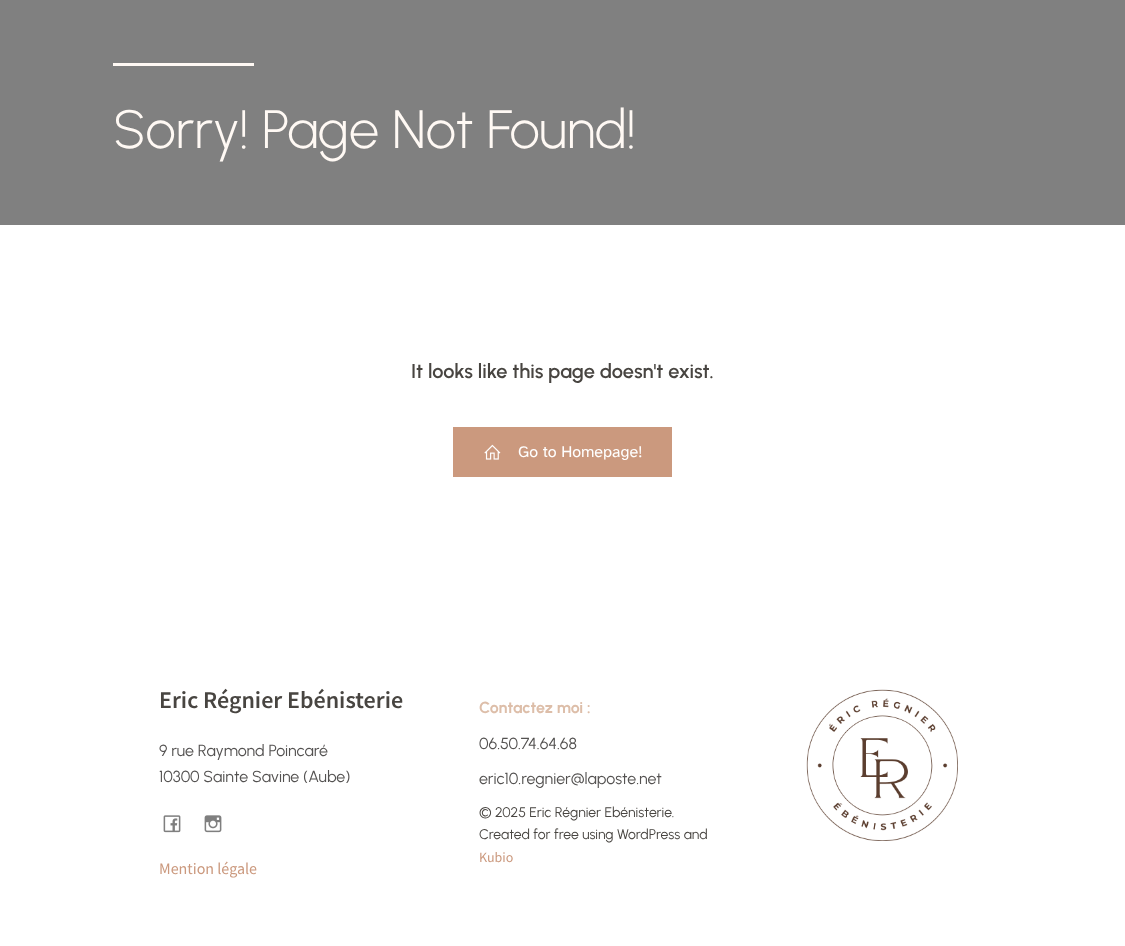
async function draw(canvas) {
  canvas.width = 1125
  canvas.height = 946
  const ctx = canvas.getContext('2d')
  ctx.miterLimit = 4
  ctx.fontKerning = 'normal'
  async function loadImage(src) {
    const img = new Image()
    img.src = src
    await img.decode()
    return img
  }

  ctx.fillStyle = '#fff'
  ctx.fillRect(0, 0, 1125, 946)
  ctx.fillStyle = '#808080'
  ctx.fillRect(0, 0, 1125, 225)
  ctx.fillStyle = '#fff9f4'
  ctx.fillRect(113, 63, 141, 3)
  ctx.font = '300 54px Urbanist'
  ctx.fillText('Sorry! Page Not Found!', 113, 148)
  ctx.font = '600 20px Urbanist'
  ctx.fillStyle = '#484541'
  ctx.fillText('It looks like this page doesn\'t exist.', 411, 378)
  ctx.fillStyle = '#cb997e'
  ctx.fillRect(453, 427, 219, 50)
  ctx.drawImage(await loadImage('image0.png'), 484, 444, 17, 16)
  ctx.font = '16px Atkinson Hyperlegible'
  ctx.fillStyle = '#fff'
  ctx.fillText('Go to Homepage!', 518, 457)
  ctx.font = '600 24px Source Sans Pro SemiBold'
  ctx.fillStyle = '#484541'
  ctx.fillText('Eric Régnier Ebénisterie', 159, 708)
  ctx.font = '16px Urbanist'
  ctx.fillStyle = '#545251'
  ctx.fillText('9 rue Raymond Poincaré', 159, 756)
  ctx.fillText('10300 Sainte Savine (Aube)', 159, 782)
  ctx.drawImage(await loadImage('image1.png'), 163, 815, 18, 18)
  ctx.drawImage(await loadImage('image2.png'), 204, 815, 18, 18)
  ctx.font = '16px Source Sans Pro'
  ctx.fillStyle = '#cb997e'
  ctx.fillText('Mention légale', 159, 874)
  ctx.font = 'bold 16px Urbanist'
  ctx.fillStyle = '#ddbea9'
  ctx.fillText('Contactez moi :', 479, 713)
  ctx.font = '16px Urbanist'
  ctx.fillStyle = '#545251'
  ctx.fillText('06.50.74.64.68', 479, 749)
  ctx.fillText('eric10.regnier@laposte.net', 479, 784)
  ctx.font = '14px Urbanist'
  ctx.fillStyle = '#484541'
  ctx.fillText('© 2025 Eric Régnier Ebénisterie.', 479, 817)
  ctx.fillText('Created for free using WordPress and', 479, 839)
  ctx.font = '14px Source Sans Pro'
  ctx.fillStyle = '#cb997e'
  ctx.fillText('Kubio', 479, 862)
  ctx.drawImage(await loadImage('image3.png'), 806, 689, 152, 152)
}

draw(document.querySelector('canvas'))
